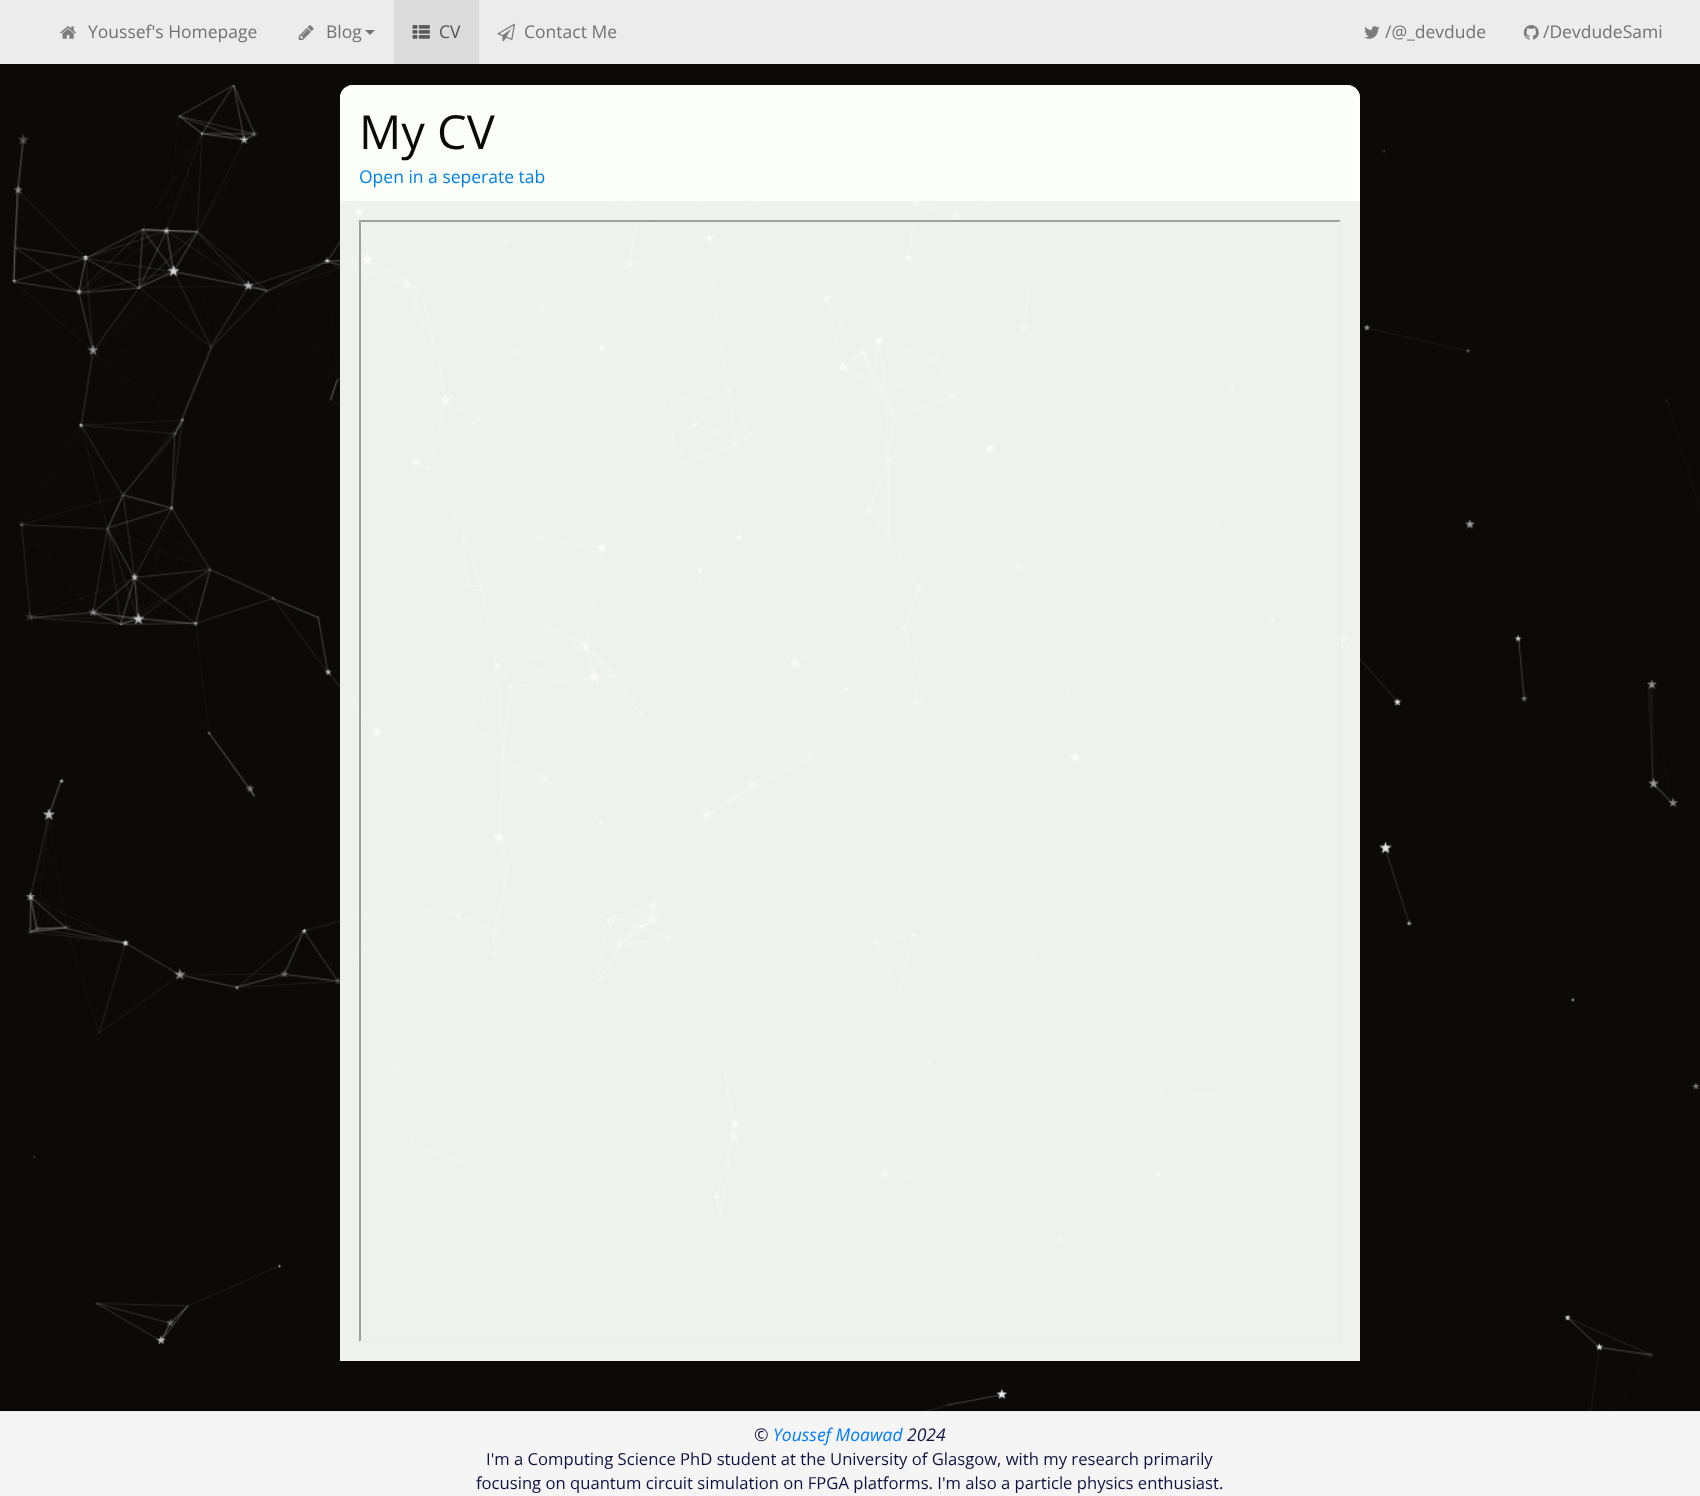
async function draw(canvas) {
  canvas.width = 1700
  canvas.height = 1496
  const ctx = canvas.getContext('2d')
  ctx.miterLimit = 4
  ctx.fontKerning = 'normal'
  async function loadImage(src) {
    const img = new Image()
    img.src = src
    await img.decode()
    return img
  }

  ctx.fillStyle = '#0b0a07'
  ctx.fillRect(0, 0, 1700, 1496)
  ctx.fillStyle = '#ececec'
  ctx.fillRect(0, 0, 1700, 64)
  ctx.drawImage(await loadImage('image0.png'), 60, 26, 16, 13)
  ctx.font = '17.5px Open Sans'
  ctx.fillStyle = '#727271'
  ctx.fillText('Youssef\'s Homepage', 88, 38)
  ctx.drawImage(await loadImage('image1.png'), 298, 25, 16, 15)
  ctx.fillText('Blog', 326, 38)
  ctx.beginPath()
  ctx.moveTo(365, 30)
  ctx.lineTo(375, 30)
  ctx.lineTo(370, 35)
  ctx.closePath()
  ctx.fill()
  ctx.fillStyle = '#dcdcdc'
  ctx.fillRect(394, 0, 85, 64)
  ctx.drawImage(await loadImage('image2.png'), 412, 25, 18, 14)
  ctx.fillStyle = '#515151'
  ctx.fillText('CV', 439, 38)
  ctx.drawImage(await loadImage('image3.png'), 497, 23, 18, 19)
  ctx.fillStyle = '#727271'
  ctx.fillText('Contact Me', 524, 38)
  ctx.drawImage(await loadImage('image4.png'), 1364, 26, 16, 13)
  ctx.fillText('/@_devdude', 1385, 38)
  ctx.drawImage(await loadImage('image5.png'), 1523, 25, 16, 15)
  ctx.fillText('/DevdudeSami', 1543, 38)
  ctx.drawImage(await loadImage('image6.png'), 11, 85, 1689, 1326)
  ctx.fillStyle = '#fbfef9f2'
  ctx.beginPath()
  ctx.roundRect(340, 85, 1020, 1276, [13, 13, 0, 0])
  ctx.fill()
  ctx.fillStyle = '#fbfef9'
  ctx.beginPath()
  ctx.roundRect(340, 85, 1020, 116, [13, 13, 0, 0])
  ctx.fill()
  ctx.font = '47px Open Sans'
  ctx.fillStyle = '#0b0a07'
  ctx.fillText('My CV', 359, 149)
  ctx.font = '17.5px Open Sans'
  ctx.fillStyle = '#0080e9'
  ctx.fillText('Open in a seperate tab', 359, 183)
  ctx.fillStyle = '#9f9f9f'
  ctx.beginPath()
  ctx.moveTo(359, 220)
  ctx.lineTo(1341, 220)
  ctx.lineTo(1339, 222)
  ctx.lineTo(361, 222)
  ctx.closePath()
  ctx.fill()
  ctx.fillStyle = '#eee'
  ctx.beginPath()
  ctx.moveTo(1341, 220)
  ctx.lineTo(1341, 1342)
  ctx.lineTo(1339, 1340)
  ctx.lineTo(1339, 222)
  ctx.closePath()
  ctx.fill()
  ctx.beginPath()
  ctx.moveTo(1341, 1342)
  ctx.lineTo(359, 1342)
  ctx.lineTo(361, 1340)
  ctx.lineTo(1339, 1340)
  ctx.closePath()
  ctx.fill()
  ctx.fillStyle = '#9f9f9f'
  ctx.beginPath()
  ctx.moveTo(359, 1342)
  ctx.lineTo(359, 220)
  ctx.lineTo(361, 222)
  ctx.lineTo(361, 1340)
  ctx.closePath()
  ctx.fill()
  ctx.fillStyle = '#f5f5f5'
  ctx.fillRect(0, 1412, 1700, 84)
  ctx.fillStyle = '#e9e9e9'
  ctx.fillRect(0, 1411, 1700, 1)
  ctx.font = 'italic 17.5px Open Sans'
  ctx.fillStyle = '#0e1241'
  ctx.fillText('©', 754, 1441)
  ctx.fillStyle = '#007bff'
  ctx.fillText('Youssef Moawad', 773, 1441)
  ctx.fillStyle = '#0e1241'
  ctx.fillText('2024', 907, 1441)
  ctx.font = '16.65px Open Sans'
  ctx.fillText('I\'m a Computing Science PhD student at the University of Glasgow, with my research primarily', 486, 1465)
  ctx.fillText('focusing on quantum circuit simulation on FPGA platforms. I\'m also a particle physics enthusiast.', 476, 1489)
}

draw(document.querySelector('canvas'))
